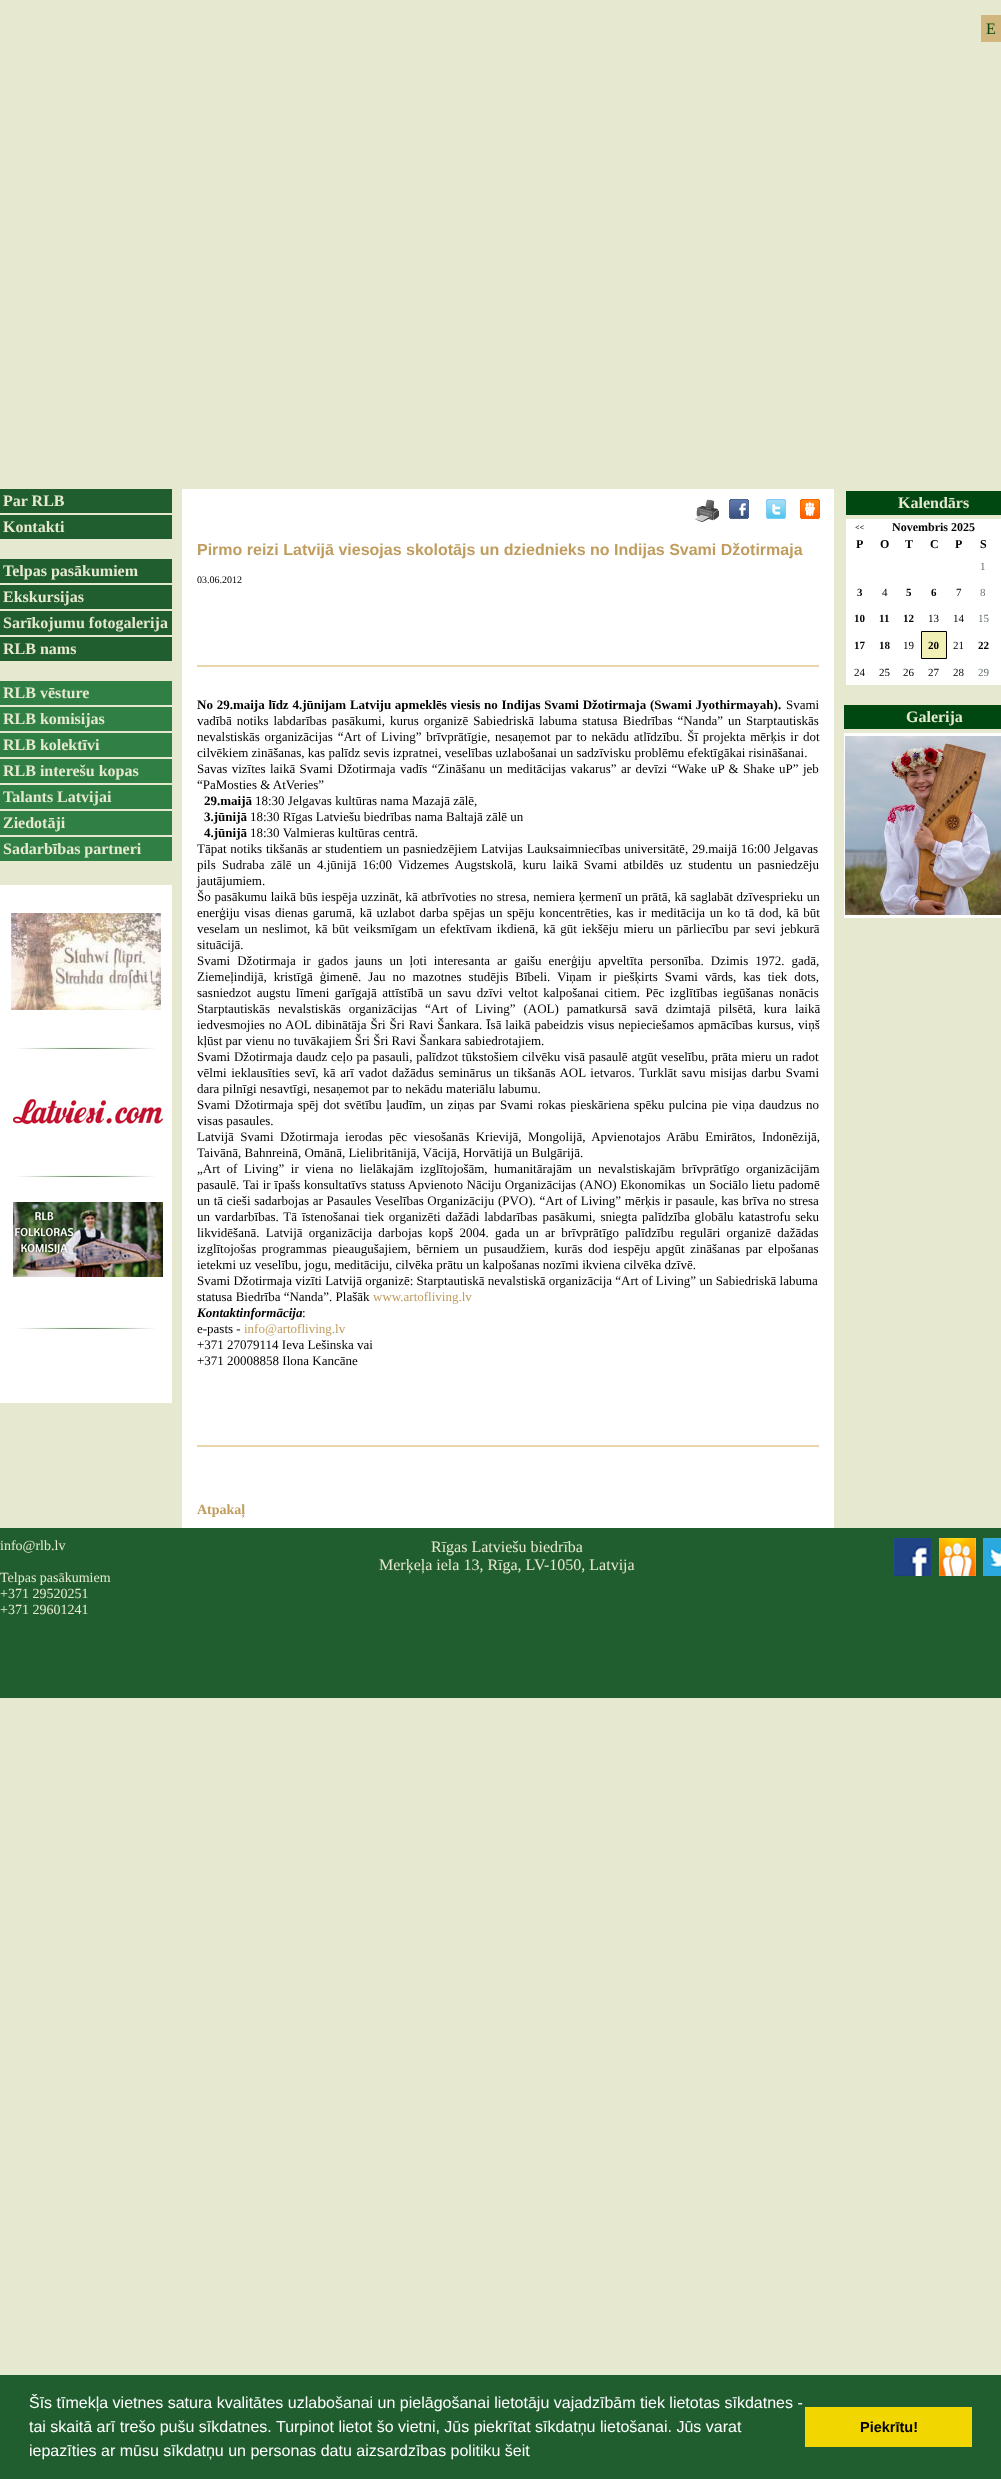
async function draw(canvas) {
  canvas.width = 1001
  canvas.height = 2479
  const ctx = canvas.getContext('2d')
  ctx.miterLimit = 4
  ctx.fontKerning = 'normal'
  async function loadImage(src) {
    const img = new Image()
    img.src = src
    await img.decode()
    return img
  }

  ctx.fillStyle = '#e6e8d0'
  ctx.fillRect(0, 0, 1001, 2479)
  ctx.fillStyle = '#d1b77d'
  ctx.fillRect(981, 15, 20, 27)
  ctx.font = '16px Liberation Serif'
  ctx.fillStyle = '#004812'
  ctx.fillText('E', 986, 34)
  ctx.fillStyle = '#205e2f'
  ctx.fillRect(0, 489, 172, 24)
  ctx.font = 'bold 16px Liberation Serif'
  ctx.fillStyle = '#e6e8d0'
  ctx.fillText('Par RLB', 3, 506)
  ctx.fillStyle = '#205e2f'
  ctx.fillRect(0, 515, 172, 24)
  ctx.fillStyle = '#e6e8d0'
  ctx.fillText('Kontakti', 3, 532)
  ctx.fillStyle = '#205e2f'
  ctx.fillRect(0, 559, 172, 24)
  ctx.fillStyle = '#e6e8d0'
  ctx.fillText('Telpas pasākumiem', 3, 576)
  ctx.fillStyle = '#205e2f'
  ctx.fillRect(0, 585, 172, 24)
  ctx.fillStyle = '#e6e8d0'
  ctx.fillText('Ekskursijas', 3, 602)
  ctx.fillStyle = '#205e2f'
  ctx.fillRect(0, 611, 172, 24)
  ctx.fillStyle = '#e6e8d0'
  ctx.fillText('Sarīkojumu fotogalerija', 3, 628)
  ctx.fillStyle = '#205e2f'
  ctx.fillRect(0, 637, 172, 24)
  ctx.fillStyle = '#e6e8d0'
  ctx.fillText('RLB nams', 3, 654)
  ctx.fillStyle = '#308045'
  ctx.fillRect(0, 681, 172, 24)
  ctx.fillStyle = '#e6e8d0'
  ctx.fillText('RLB vēsture', 3, 698)
  ctx.fillStyle = '#308045'
  ctx.fillRect(0, 707, 172, 24)
  ctx.fillStyle = '#e6e8d0'
  ctx.fillText('RLB komisijas', 3, 724)
  ctx.fillStyle = '#308045'
  ctx.fillRect(0, 733, 172, 24)
  ctx.fillStyle = '#e6e8d0'
  ctx.fillText('RLB kolektīvi', 3, 750)
  ctx.fillStyle = '#308045'
  ctx.fillRect(0, 759, 172, 24)
  ctx.fillStyle = '#e6e8d0'
  ctx.fillText('RLB interešu kopas', 3, 776)
  ctx.fillStyle = '#308045'
  ctx.fillRect(0, 785, 172, 24)
  ctx.fillStyle = '#e6e8d0'
  ctx.fillText('Talants Latvijai', 3, 802)
  ctx.fillStyle = '#308045'
  ctx.fillRect(0, 811, 172, 24)
  ctx.fillStyle = '#e6e8d0'
  ctx.fillText('Ziedotāji', 3, 828)
  ctx.fillStyle = '#308045'
  ctx.fillRect(0, 837, 172, 24)
  ctx.fillStyle = '#e6e8d0'
  ctx.fillText('Sadarbības partneri', 3, 854)
  ctx.fillStyle = '#fff'
  ctx.fillRect(0, 885, 172, 518)
  ctx.drawImage(await loadImage('image0.png'), 11, 913, 150, 97)
  ctx.drawImage(await loadImage('image1.png'), 17, 1046, 138, 5)
  ctx.drawImage(await loadImage('image2.png'), 13, 1099, 150, 26)
  ctx.drawImage(await loadImage('image1.png'), 17, 1174, 138, 5)
  ctx.drawImage(await loadImage('image3.png'), 13, 1202, 150, 75)
  ctx.drawImage(await loadImage('image1.png'), 17, 1326, 138, 5)
  ctx.fillRect(182, 489, 652, 1039)
  ctx.drawImage(await loadImage('image4.png'), 695, 499, 24, 23)
  ctx.drawImage(await loadImage('image5.png'), 729, 499, 20, 20)
  ctx.drawImage(await loadImage('image6.png'), 766, 499, 20, 20)
  ctx.drawImage(await loadImage('image7.png'), 800, 499, 20, 20)
  ctx.font = 'bold 16px Liberation Sans'
  ctx.fillStyle = '#c09d5f'
  ctx.fillText('Pirmo reizi Latvijā viesojas skolotājs un dziednieks no Indijas Svami Džotirmaja', 197, 555)
  ctx.font = '10px Liberation Serif'
  ctx.fillStyle = '#000'
  ctx.fillText('03.06.2012', 197, 583)
  ctx.fillStyle = '#e9d6ae'
  ctx.fillRect(197, 665, 622, 2)
  ctx.wordSpacing = '0.5px'
  ctx.font = 'bold 13px Liberation Serif'
  ctx.fillStyle = '#000'
  ctx.fillText('No 29.maija līdz 4.jūnijam Latviju apmeklēs viesis no Indijas Svami Džotirmaja (Swami Jyothirmayah).', 197, 709)
  ctx.wordSpacing = '0px'
  ctx.font = '13px Liberation Serif'
  ctx.fillText('Svami', 786, 709)
  ctx.wordSpacing = '1.75px'
  ctx.fillText('vadībā notiks labdarības pasākumi, kurus organizē Sabiedriskā labuma statusa Biedrības “Nanda” un Starptautiskās', 197, 725)
  ctx.wordSpacing = '1.5px'
  ctx.fillText('nevalstiskās organizācijas “Art of Living” brīvprātīgie, nesaņemot par to nekādu atlīdzību. Šī projekta mērķis ir dot', 197, 741)
  ctx.wordSpacing = '0px'
  ctx.fillText('cilvēkiem zināšanas, kas palīdz sevis izpratnei, veselības uzlabošanai un sadzīvisku problēmu efektīgākai risināšanai.', 197, 757)
  ctx.wordSpacing = '1.1px'
  ctx.fillText('Savas vizītes laikā Svami Džotirmaja vadīs “Zināšanu un meditācijas vakarus” ar devīzi “Wake uP & Shake uP” jeb', 197, 773)
  ctx.wordSpacing = '0px'
  ctx.fillText('“PaMosties & AtVeries”', 197, 789)
  ctx.font = 'bold 13px Liberation Serif'
  ctx.fillText('29.maijā', 204, 805)
  ctx.font = '13px Liberation Serif'
  ctx.fillText('18:30 Jelgavas kultūras nama Mazajā zālē,', 255, 805)
  ctx.font = 'bold 13px Liberation Serif'
  ctx.fillText('3.jūnijā', 204, 821)
  ctx.font = '13px Liberation Serif'
  ctx.fillText('18:30 Rīgas Latviešu biedrības nama Baltajā zālē un', 250, 821)
  ctx.font = 'bold 13px Liberation Serif'
  ctx.fillText('4.jūnijā', 204, 837)
  ctx.font = '13px Liberation Serif'
  ctx.fillText('18:30 Valmieras kultūras centrā.', 250, 837)
  ctx.wordSpacing = '0.5px'
  ctx.fillText('Tāpat notiks tikšanās ar studentiem un pasniedzējiem Latvijas Lauksaimniecības universitātē, 29.maijā 16:00 Jelgavas', 197, 853)
  ctx.wordSpacing = '2.9px'
  ctx.fillText('pils Sudraba zālē un 4.jūnijā 16:00 Vidzemes Augstskolā, kuru laikā Svami atbildēs uz studentu un pasniedzēju', 197, 869)
  ctx.wordSpacing = '0px'
  ctx.fillText('jautājumiem.', 197, 885)
  ctx.wordSpacing = '0.4px'
  ctx.fillText('Šo pasākumu laikā būs iespēja uzzināt, kā atbrīvoties no stresa, nemiera ķermenī un prātā, kā saglabāt dzīvesprieku un', 197, 901)
  ctx.wordSpacing = '1.4px'
  ctx.fillText('enerģiju visas dienas garumā, kā uzlabot darba spējas un spēju koncentrēties, kas ir meditācija un ko tā dod, kā būt', 197, 917)
  ctx.wordSpacing = '1.6px'
  ctx.fillText('veselam un neslimot, kā būt veiksmīgam un efektīvam ikdienā, kā gūt iekšēju mieru un pārliecību par sevi jebkurā', 197, 933)
  ctx.wordSpacing = '0px'
  ctx.fillText('situācijā.', 197, 949)
  ctx.wordSpacing = '3.75px'
  ctx.fillText('Svami Džotirmaja ir gados jauns un ļoti interesanta ar gaišu enerģiju apveltīta personība. Dzimis 1972. gadā,', 197, 965)
  ctx.fillText('Ziemeļindijā, kristīgā ģimenē. Jau no mazotnes studējis Bībeli. Viņam ir piešķirts Svami vārds, kas tiek dots,', 197, 981)
  ctx.wordSpacing = '2.25px'
  ctx.fillText('sasniedzot augstu līmeni garīgajā attīstībā un savu dzīvi veltot kalpošanai citiem. Pēc izglītības iegūšanas nonācis', 197, 997)
  ctx.wordSpacing = '4.75px'
  ctx.fillText('Starptautiskās nevalstiskās organizācijas “Art of Living” (AOL) pamatkursā savā dzimtajā pilsētā, kura laikā', 197, 1013)
  ctx.wordSpacing = '0.7px'
  ctx.fillText('iedvesmojies no AOL dibinātāja Šri Šri Ravi Šankara. Īsā laikā pabeidzis visus nepieciešamos apmācības kursus, viņš', 197, 1029)
  ctx.wordSpacing = '0px'
  ctx.fillText('kļūst par vienu no tuvākajiem Šri Šri Ravi Šankara sabiedrotajiem.', 197, 1045)
  ctx.wordSpacing = '0.5px'
  ctx.fillText('Svami Džotirmaja daudz ceļo pa pasauli, palīdzot tūkstošiem cilvēku visā pasaulē atgūt veselību, prāta mieru un radot', 197, 1061)
  ctx.wordSpacing = '1.4px'
  ctx.fillText('vēlmi ieklausīties sevī, kā arī vadot dažādus seminārus un tikšanās AOL ietvaros. Turklāt savu misijas darbu Svami', 197, 1077)
  ctx.wordSpacing = '0px'
  ctx.fillText('dara pilnīgi nesavtīgi, nesaņemot par to nekādu materiālu labumu.', 197, 1093)
  ctx.wordSpacing = '1.25px'
  ctx.fillText('Svami Džotirmaja spēj dot svētību ļaudīm, un ziņas par Svami rokas pieskāriena spēku pulcina pie viņa daudzus no', 197, 1109)
  ctx.wordSpacing = '0px'
  ctx.fillText('visas pasaules.', 197, 1125)
  ctx.wordSpacing = '3.25px'
  ctx.fillText('Latvijā Svami Džotirmaja ierodas pēc viesošanās Krievijā, Mongolijā, Apvienotajos Arābu Emirātos, Indonēzijā,', 197, 1141)
  ctx.wordSpacing = '0px'
  ctx.fillText('Taivānā, Bahnreinā, Omānā, Lielibritānijā, Vācijā, Horvātijā un Bulgārijā.', 197, 1157)
  ctx.wordSpacing = '3.25px'
  ctx.fillText('„Art of Living” ir viena no lielākajām izglītojošām, humanitārajām un nevalstiskajām brīvprātīgo organizācijām', 197, 1173)
  ctx.wordSpacing = '0.4px'
  ctx.fillText('pasaulē. Tai ir īpašs konsultatīvs statuss Apvienoto Nāciju Organizācijas (ANO) Ekonomikas  un Sociālo lietu padomē', 197, 1189)
  ctx.fillText('un tā cieši sadarbojas ar Pasaules Veselības Organizāciju (PVO). “Art of Living” mērķis ir pasaule, kas brīva no stresa', 197, 1205)
  ctx.wordSpacing = '1.6px'
  ctx.fillText('un vardarbības. Tā īstenošanai tiek organizēti dažādi labdarības pasākumi, sniegta palīdzība globālu katastrofu seku', 197, 1221)
  ctx.wordSpacing = '3px'
  ctx.fillText('likvidēšanā. Latvijā organizācija darbojas kopš 2004. gada un ar brīvprātīgo palīdzību regulāri organizē dažādas', 197, 1237)
  ctx.wordSpacing = '2.4px'
  ctx.fillText('izglītojošas programmas pieaugušajiem, bērniem un pusaudžiem, kurās dod iespēju apgūt zināšanas par elpošanas', 197, 1253)
  ctx.wordSpacing = '0px'
  ctx.fillText('ietekmi uz veselību, jogu, meditāciju, cilvēka prātu un kalpošanas nozīmi ikviena cilvēka dzīvē.', 197, 1269)
  ctx.fillText('Svami Džotirmaja vizīti Latvijā organizē: Starptautiskā nevalstiskā organizācija “Art of Living” un Sabiedriskā labuma', 197, 1285)
  ctx.fillText('statusa Biedrība “Nanda”. Plašāk', 197, 1301)
  ctx.fillStyle = '#c09d5f'
  ctx.fillText('www.artofliving.lv', 373, 1301)
  ctx.font = 'italic bold 13px Liberation Serif'
  ctx.fillStyle = '#000'
  ctx.fillText('Kontaktinformācija', 197, 1317)
  ctx.font = '13px Liberation Serif'
  ctx.fillText(':', 302, 1317)
  ctx.fillText('e-pasts -', 197, 1333)
  ctx.fillStyle = '#c09d5f'
  ctx.fillText('info@artofliving.lv', 244, 1333)
  ctx.fillStyle = '#000'
  ctx.fillText('+371 27079114 Ieva Lešinska vai', 197, 1349)
  ctx.fillText('+371 20008858 Ilona Kancāne', 197, 1365)
  ctx.fillStyle = '#e9d6ae'
  ctx.fillRect(197, 1445, 622, 2)
  ctx.font = 'bold 14px Liberation Serif'
  ctx.fillStyle = '#c09d5f'
  ctx.fillText('Atpakaļ', 197, 1514)
  ctx.fillStyle = '#004811'
  ctx.fillRect(846, 491, 155, 24)
  ctx.font = 'bold 16px Liberation Serif'
  ctx.fillStyle = '#e6e8d0'
  ctx.fillText('Kalendārs', 898, 508)
  ctx.fillStyle = '#fff'
  ctx.fillRect(846, 519, 155, 166)
  ctx.font = 'bold 8px Liberation Serif'
  ctx.fillStyle = '#000'
  ctx.fillText('<<', 855, 530)
  ctx.font = 'bold 12px Liberation Serif'
  ctx.fillText('Novembris 2025', 892, 531)
  ctx.fillText('P', 856, 548)
  ctx.fillText('O', 880, 548)
  ctx.fillText('T', 905, 548)
  ctx.fillText('C', 930, 548)
  ctx.fillText('P', 955, 548)
  ctx.fillText('S', 980, 548)
  ctx.font = '11px Liberation Serif'
  ctx.fillStyle = '#667171'
  ctx.fillText('1', 980, 570)
  ctx.font = 'bold 11px Liberation Serif'
  ctx.fillStyle = '#000'
  ctx.fillText('3', 857, 596)
  ctx.font = '11px Liberation Serif'
  ctx.fillText('4', 882, 596)
  ctx.font = 'bold 11px Liberation Serif'
  ctx.fillText('5', 906, 596)
  ctx.fillText('6', 931, 596)
  ctx.font = '11px Liberation Serif'
  ctx.fillText('7', 956, 596)
  ctx.fillStyle = '#667171'
  ctx.fillText('8', 980, 596)
  ctx.font = 'bold 11px Liberation Serif'
  ctx.fillStyle = '#000'
  ctx.fillText('10', 854, 622)
  ctx.fillText('11', 879, 622)
  ctx.fillText('12', 903, 622)
  ctx.font = '11px Liberation Serif'
  ctx.fillText('13', 928, 622)
  ctx.fillText('14', 953, 622)
  ctx.fillStyle = '#667171'
  ctx.fillText('15', 978, 622)
  ctx.font = 'bold 11px Liberation Serif'
  ctx.fillStyle = '#000'
  ctx.fillText('17', 854, 649)
  ctx.fillText('18', 879, 649)
  ctx.font = '11px Liberation Serif'
  ctx.fillText('19', 903, 649)
  ctx.fillStyle = '#f1f1b6'
  ctx.beginPath()
  ctx.rect(921.5, 631.5, 25, 27)
  ctx.fill()
  ctx.strokeStyle = '#000'
  ctx.stroke()
  ctx.font = 'bold 11px Liberation Serif'
  ctx.fillStyle = '#000'
  ctx.fillText('20', 928, 649)
  ctx.font = '11px Liberation Serif'
  ctx.fillText('21', 953, 649)
  ctx.font = 'bold 11px Liberation Serif'
  ctx.fillText('22', 978, 649)
  ctx.font = '11px Liberation Serif'
  ctx.fillText('24', 854, 676)
  ctx.fillText('25', 879, 676)
  ctx.fillText('26', 903, 676)
  ctx.fillText('27', 928, 676)
  ctx.fillText('28', 953, 676)
  ctx.fillStyle = '#667171'
  ctx.fillText('29', 978, 676)
  ctx.fillStyle = '#004811'
  ctx.fillRect(844, 705, 157, 24)
  ctx.font = 'bold 16px Liberation Serif'
  ctx.fillStyle = '#e6e8d0'
  ctx.fillText('Galerija', 906, 722)
  ctx.fillStyle = '#fff'
  ctx.fillRect(844, 733, 157, 185)
  ctx.drawImage(await loadImage('image8.png'), 845, 736, 156, 179)
  ctx.fillStyle = '#205e2f'
  ctx.fillRect(0, 1528, 1001, 170)
  ctx.font = '14px Liberation Serif'
  ctx.fillStyle = '#e6e8d0'
  ctx.fillText('info@rlb.lv', 0, 1550)
  ctx.fillText('Telpas pasākumiem', 0, 1582)
  ctx.fillText('+371 29520251', 0, 1598)
  ctx.fillText('+371 29601241', 0, 1614)
  ctx.font = '16px Liberation Serif'
  ctx.fillText('Rīgas Latviešu biedrība', 431, 1552)
  ctx.fillText('Merķeļa iela 13, Rīga, LV-1050, Latvija', 379, 1570)
  ctx.drawImage(await loadImage('image9.png'), 894, 1538, 37, 38)
  ctx.drawImage(await loadImage('image10.png'), 939, 1538, 37, 38)
  ctx.drawImage(await loadImage('image11.png'), 983, 1538, 18, 38)
  ctx.fillStyle = '#205e2f'
  ctx.fillRect(0, 2375, 1001, 104)
  ctx.font = '16px Liberation Sans'
  ctx.fillStyle = '#fff'
  ctx.fillText('Šīs tīmekļa vietnes satura kvalitātes uzlabošanai un pielāgošanai lietotāju vajadzībām tiek lietotas sīkdatnes -', 29, 2408)
  ctx.fillText('tai skaitā arī trešo pušu sīkdatnes. Turpinot lietot šo vietni, Jūs piekrītat sīkdatņu lietošanai. Jūs varat', 29, 2432)
  ctx.fillText('iepazīties ar mūsu sīkdatņu un personas datu aizsardzības politiku šeit', 29, 2456)
  ctx.fillStyle = '#f1d600'
  ctx.fillRect(805, 2407, 167, 40)
  ctx.font = 'bold 14.5px Liberation Sans'
  ctx.fillStyle = '#000'
  ctx.fillText('Piekrītu!', 860, 2432)
}

draw(document.querySelector('canvas'))
